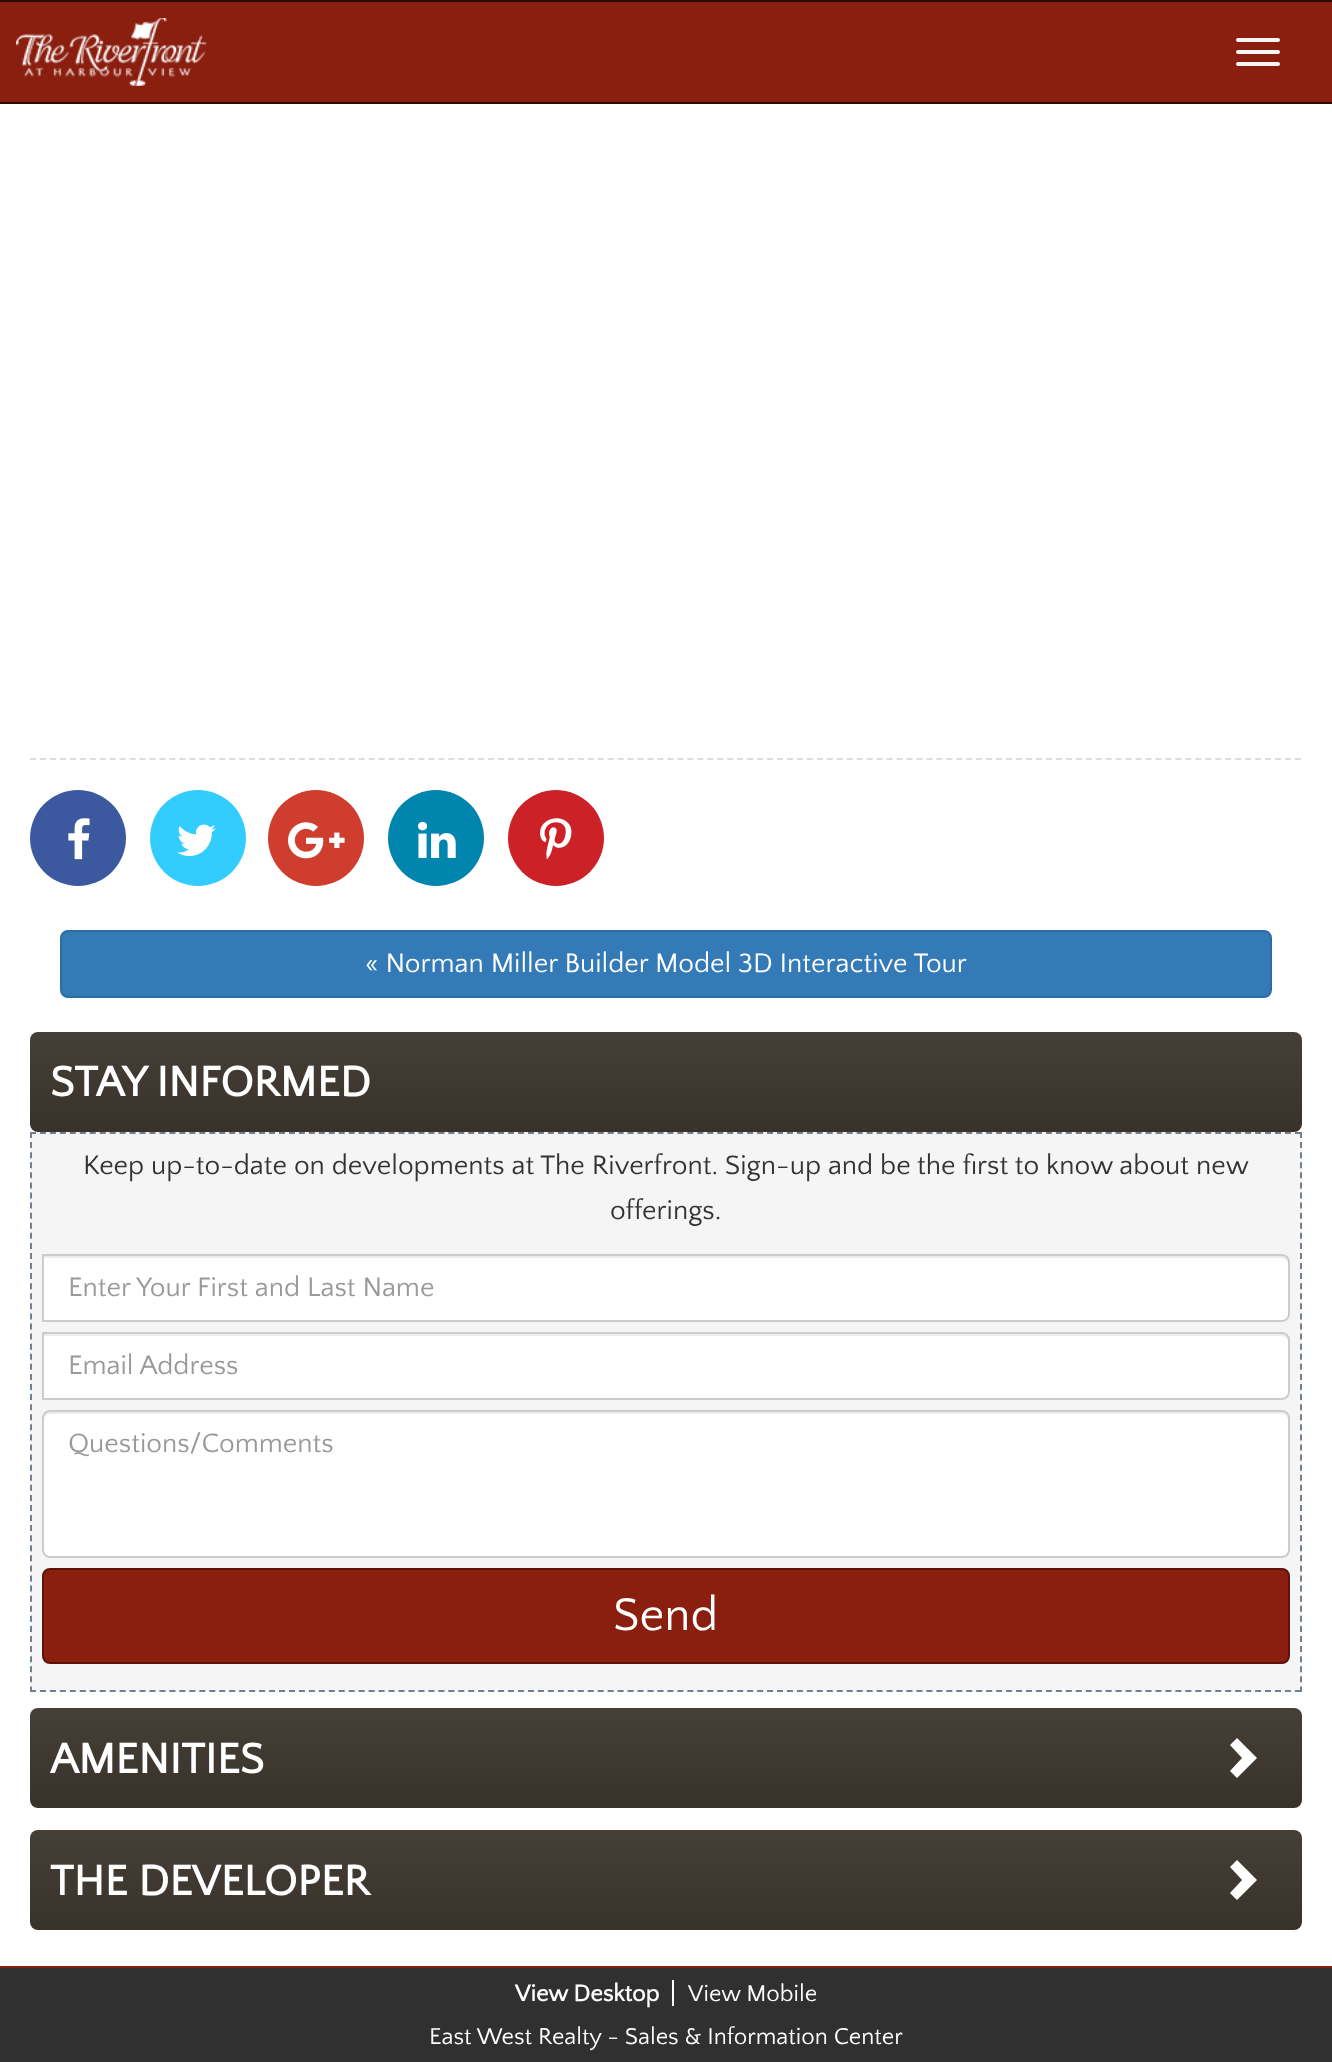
async function draw(canvas) {
  canvas.width = 1332
  canvas.height = 2062
  const ctx = canvas.getContext('2d')
  ctx.miterLimit = 4
  ctx.fontKerning = 'normal'
  async function loadImage(src) {
    const img = new Image()
    img.src = src
    await img.decode()
    return img
  }
  let gradient

  ctx.fillStyle = '#fff'
  ctx.fillRect(0, 0, 1332, 2062)
  ctx.fillStyle = '#8a1e0f'
  ctx.fillRect(0, 2, 1332, 100)
  ctx.fillStyle = '#2e0a05'
  ctx.fillRect(0, 0, 1332, 2)
  ctx.fillRect(0, 102, 1332, 2)
  ctx.drawImage(await loadImage('image0.png'), 16, 18, 191, 68)
  ctx.fillStyle = '#f5f5f5'
  ctx.beginPath()
  ctx.roundRect(1236, 38, 44, 4, 2)
  ctx.fill()
  ctx.beginPath()
  ctx.roundRect(1236, 50, 44, 4, 2)
  ctx.fill()
  ctx.beginPath()
  ctx.roundRect(1236, 62, 44, 4, 2)
  ctx.fill()
  ctx.beginPath()
  ctx.moveTo(30, 759)
  ctx.lineTo(1302, 759)
  ctx.strokeStyle = '#ddd'
  ctx.lineWidth = 2
  ctx.setLineDash([6, 3.96])
  ctx.stroke()
  ctx.fillStyle = '#3c599f'
  ctx.beginPath()
  ctx.arc(78, 838, 48, 0, 2 * Math.PI)
  ctx.fill()
  ctx.drawImage(await loadImage('image1.png'), 68, 818, 22, 42)
  ctx.fillStyle = '#32ccfe'
  ctx.beginPath()
  ctx.arc(198, 838, 48, 0, 2 * Math.PI)
  ctx.fill()
  ctx.drawImage(await loadImage('image2.png'), 177, 824, 39, 32)
  ctx.fillStyle = '#cf3d2e'
  ctx.beginPath()
  ctx.arc(316, 838, 48, 0, 2 * Math.PI)
  ctx.fill()
  ctx.drawImage(await loadImage('image3.png'), 288, 822, 57, 37)
  ctx.fillStyle = '#0085ae'
  ctx.beginPath()
  ctx.arc(436, 838, 48, 0, 2 * Math.PI)
  ctx.fill()
  ctx.drawImage(await loadImage('image4.png'), 418, 821, 38, 37)
  ctx.fillStyle = '#cc2127'
  ctx.beginPath()
  ctx.arc(556, 838, 48, 0, 2 * Math.PI)
  ctx.fill()
  ctx.drawImage(await loadImage('image5.png'), 540, 818, 32, 42)
  ctx.fillStyle = '#337ab7'
  ctx.beginPath()
  ctx.roundRect(61, 931, 1210, 66, 7)
  ctx.fill()
  ctx.strokeStyle = '#2e6da4'
  ctx.setLineDash([])
  ctx.stroke()
  ctx.font = '28px Quattrocento Sans'
  ctx.fillStyle = '#fff'
  ctx.fillText('« Norman Miller Builder Model 3D Interactive Tour', 365, 972)
  gradient = ctx.createLinearGradient(666, 1032, 666, 1132)
  gradient.addColorStop(0, '#463f37')
  gradient.addColorStop(1, '#38322b')
  ctx.fillStyle = gradient
  ctx.beginPath()
  ctx.roundRect(30, 1032, 1272, 100, 8)
  ctx.fill()
  ctx.font = 'bold 44px Quattrocento Sans'
  ctx.fillStyle = '#fff'
  ctx.fillText('STAY INFORMED', 50, 1096)
  ctx.fillStyle = '#f5f5f5'
  ctx.fillRect(30, 1132, 1272, 560)
  ctx.beginPath()
  ctx.moveTo(30, 1133)
  ctx.lineTo(1302, 1133)
  ctx.strokeStyle = '#708090'
  ctx.setLineDash([6, 3.96])
  ctx.stroke()
  ctx.beginPath()
  ctx.moveTo(1301, 1132)
  ctx.lineTo(1301, 1692)
  ctx.setLineDash([6, 4.08])
  ctx.stroke()
  ctx.beginPath()
  ctx.moveTo(30, 1691)
  ctx.lineTo(1302, 1691)
  ctx.setLineDash([6, 3.96])
  ctx.stroke()
  ctx.beginPath()
  ctx.moveTo(31, 1132)
  ctx.lineTo(31, 1692)
  ctx.setLineDash([6, 4.08])
  ctx.stroke()
  ctx.font = '28px Quattrocento Sans'
  ctx.fillStyle = '#333'
  ctx.fillText('Keep up-to-date on developments at The Riverfront. Sign-up and be the first to know about new', 83, 1174)
  ctx.fillText('offerings.', 610, 1219)
  ctx.fillStyle = '#fff'
  ctx.beginPath()
  ctx.roundRect(42, 1254, 1248, 68, [0, 8, 8, 0])
  ctx.fill()
  ctx.fillStyle = '#ececec'
  ctx.beginPath()
  ctx.moveTo(44, 1258)
  ctx.lineTo(1282, 1258)
  ctx.bezierCurveTo(1285, 1258, 1288, 1261, 1288, 1264)
  ctx.lineTo(1288, 1262)
  ctx.bezierCurveTo(1288, 1259, 1285, 1256, 1282, 1256)
  ctx.lineTo(44, 1256)
  ctx.closePath()
  ctx.fill()
  ctx.beginPath()
  ctx.roundRect(43, 1255, 1246, 66, [0, 7, 7, 0])
  ctx.strokeStyle = '#ccc'
  ctx.setLineDash([])
  ctx.stroke()
  ctx.fillStyle = '#999'
  ctx.fillText('Enter Your First and Last Name', 68, 1296)
  ctx.fillStyle = '#fff'
  ctx.beginPath()
  ctx.roundRect(42, 1332, 1248, 68, [0, 8, 8, 0])
  ctx.fill()
  ctx.fillStyle = '#ececec'
  ctx.beginPath()
  ctx.moveTo(44, 1336)
  ctx.lineTo(1282, 1336)
  ctx.bezierCurveTo(1285, 1336, 1288, 1339, 1288, 1342)
  ctx.lineTo(1288, 1340)
  ctx.bezierCurveTo(1288, 1337, 1285, 1334, 1282, 1334)
  ctx.lineTo(44, 1334)
  ctx.closePath()
  ctx.fill()
  ctx.beginPath()
  ctx.roundRect(43, 1333, 1246, 66, [0, 7, 7, 0])
  ctx.stroke()
  ctx.fillStyle = '#999'
  ctx.fillText('Email Address', 68, 1374)
  ctx.fillStyle = '#fff'
  ctx.beginPath()
  ctx.roundRect(42, 1410, 1248, 148, 8)
  ctx.fill()
  ctx.fillStyle = '#ececec'
  ctx.beginPath()
  ctx.moveTo(50, 1414)
  ctx.lineTo(1282, 1414)
  ctx.bezierCurveTo(1285, 1414, 1288, 1417, 1288, 1420)
  ctx.lineTo(1288, 1418)
  ctx.bezierCurveTo(1288, 1415, 1285, 1412, 1282, 1412)
  ctx.lineTo(50, 1412)
  ctx.bezierCurveTo(47, 1412, 44, 1415, 44, 1418)
  ctx.lineTo(44, 1420)
  ctx.bezierCurveTo(44, 1417, 47, 1414, 50, 1414)
  ctx.closePath()
  ctx.fill()
  ctx.beginPath()
  ctx.roundRect(43, 1411, 1246, 146, 7)
  ctx.stroke()
  ctx.fillStyle = '#999'
  ctx.fillText('Questions/Comments', 68, 1452)
  ctx.fillStyle = '#8a1e0f'
  ctx.beginPath()
  ctx.roundRect(43, 1569, 1246, 94, 7)
  ctx.fill()
  ctx.strokeStyle = '#5c140a'
  ctx.stroke()
  ctx.font = '48px Quattrocento Sans'
  ctx.fillStyle = '#fff'
  ctx.fillText('Send', 613, 1630)
  gradient = ctx.createLinearGradient(666, 1708, 666, 1808)
  gradient.addColorStop(0, '#463f37')
  gradient.addColorStop(1, '#38322b')
  ctx.fillStyle = gradient
  ctx.beginPath()
  ctx.roundRect(30, 1708, 1272, 100, 8)
  ctx.fill()
  ctx.font = 'bold 44px Quattrocento Sans'
  ctx.fillStyle = '#fff'
  ctx.fillText('AMENITIES', 50, 1773)
  ctx.beginPath()
  ctx.moveTo(1257, 1758)
  ctx.lineTo(1237, 1778)
  ctx.lineTo(1230, 1771)
  ctx.lineTo(1242, 1758)
  ctx.lineTo(1230, 1745)
  ctx.lineTo(1237, 1738)
  ctx.closePath()
  ctx.fill()
  gradient = ctx.createLinearGradient(666, 1830, 666, 1930)
  gradient.addColorStop(0, '#463f37')
  gradient.addColorStop(1, '#38322b')
  ctx.fillStyle = gradient
  ctx.beginPath()
  ctx.roundRect(30, 1830, 1272, 100, 8)
  ctx.fill()
  ctx.fillStyle = '#fff'
  ctx.fillText('THE DEVELOPER', 50, 1895)
  ctx.beginPath()
  ctx.moveTo(1257, 1880)
  ctx.lineTo(1237, 1900)
  ctx.lineTo(1230, 1893)
  ctx.lineTo(1242, 1880)
  ctx.lineTo(1230, 1867)
  ctx.lineTo(1237, 1860)
  ctx.closePath()
  ctx.fill()
  ctx.fillStyle = '#303030'
  ctx.fillRect(0, 1968, 1332, 94)
  ctx.fillStyle = '#8a1e0f'
  ctx.fillRect(0, 1966, 1332, 2)
  ctx.font = 'bold 24px Quattrocento Sans'
  ctx.fillStyle = '#fff'
  ctx.fillText('View Desktop', 515, 2001)
  ctx.font = '24px Quattrocento Sans'
  ctx.fillText('View Mobile', 688, 2001)
  ctx.fillRect(672, 1980, 2, 26)
  ctx.fillText('East West Realty - Sales & Information Center', 429, 2044)
}

draw(document.querySelector('canvas'))
